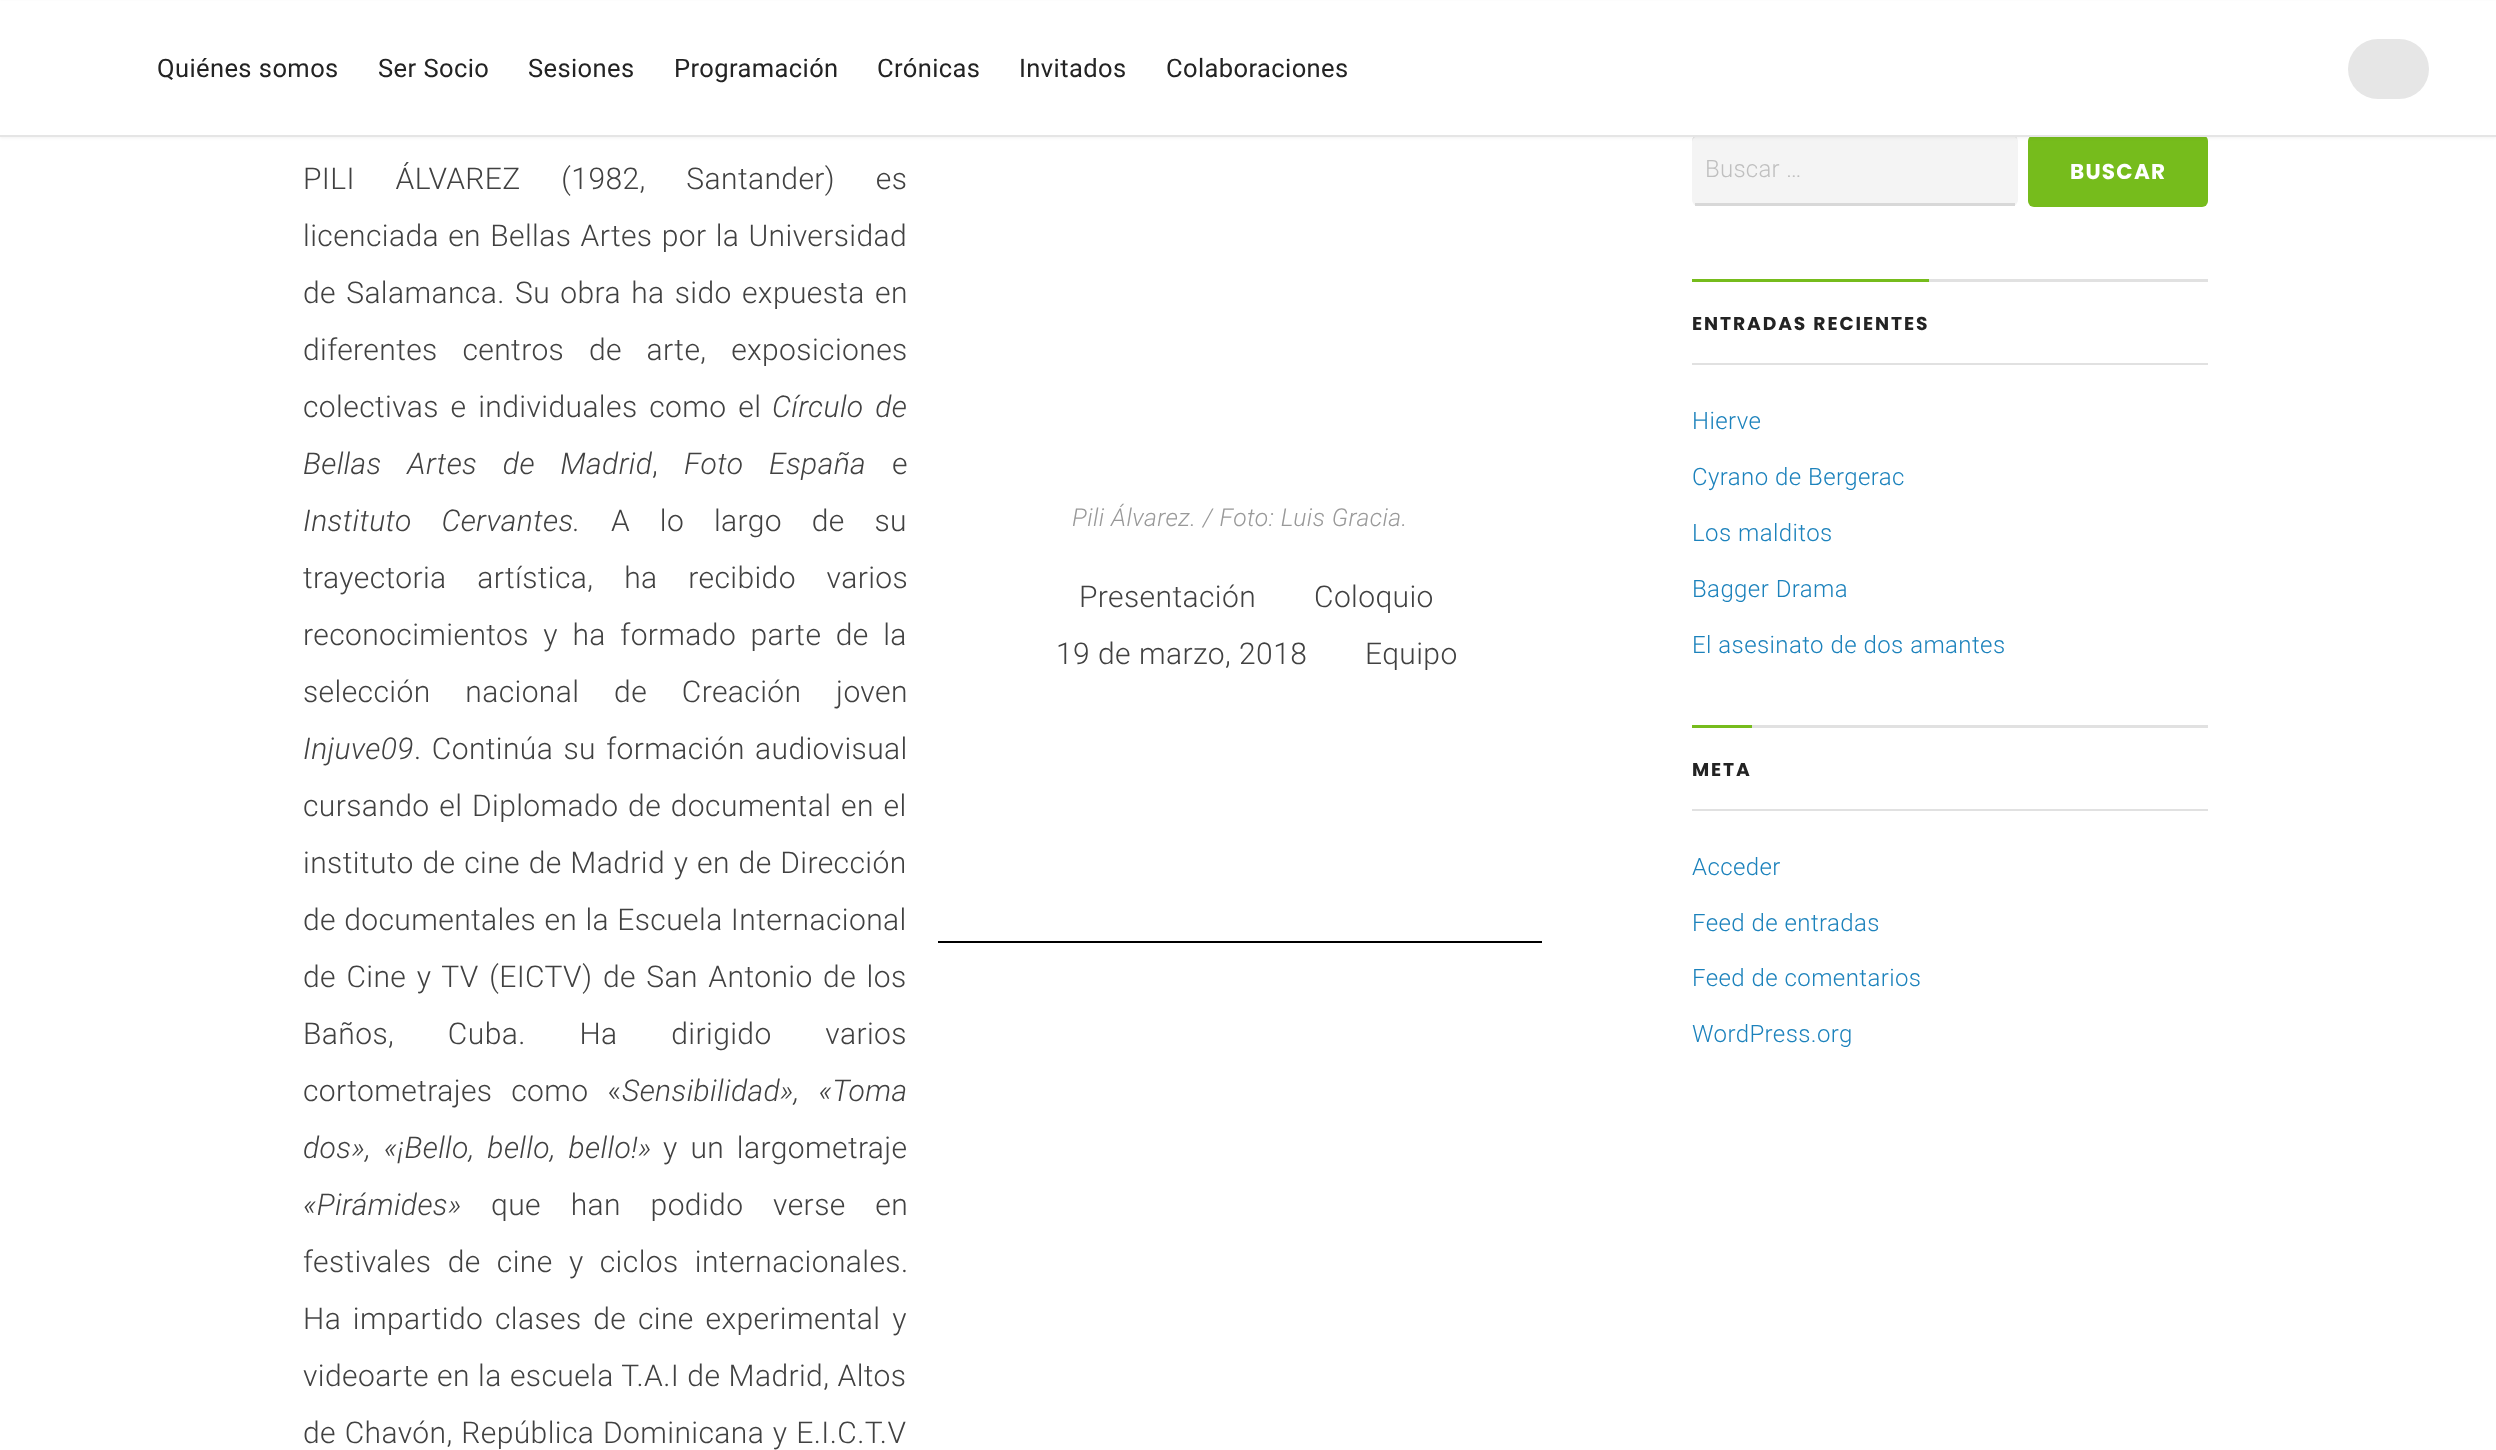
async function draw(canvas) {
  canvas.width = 2496
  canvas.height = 1450
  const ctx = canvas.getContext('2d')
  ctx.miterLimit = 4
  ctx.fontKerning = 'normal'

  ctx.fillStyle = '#fff'
  ctx.fillRect(0, 0, 2496, 1450)
  ctx.fillStyle = '#f4f4f4'
  ctx.beginPath()
  ctx.roundRect(1692, 135, 326, 71, 6)
  ctx.fill()
  ctx.fillStyle = '#dcdcdc'
  ctx.beginPath()
  ctx.moveTo(1698, 136)
  ctx.lineTo(2012, 136)
  ctx.bezierCurveTo(2014, 136, 2016, 137, 2017, 139)
  ctx.bezierCurveTo(2017, 137, 2014, 135, 2012, 135)
  ctx.lineTo(1698, 135)
  ctx.bezierCurveTo(1695, 135, 1692, 138, 1692, 141)
  ctx.lineTo(1692, 142)
  ctx.bezierCurveTo(1692, 139, 1695, 136, 1698, 136)
  ctx.closePath()
  ctx.fill()
  ctx.fillStyle = '#76bc1c'
  ctx.beginPath()
  ctx.roundRect(2028, 135, 180, 72, 6)
  ctx.fill()
  ctx.fillStyle = '#0000000d'
  ctx.filter = 'blur(1.5px)'
  ctx.beginPath()
  ctx.rect(0, 2, 2496, 136)
  ctx.fill()
  ctx.filter = 'none'
  ctx.fillStyle = '#fff'
  ctx.fillRect(0, 1, 2496, 134)
  ctx.fillStyle = '#e5e5e5'
  ctx.fillRect(0, 135, 2496, 2)
  ctx.letterSpacing = '0.4px'
  ctx.wordSpacing = '0.25px'
  ctx.font = '25.5px Roboto'
  ctx.fillStyle = '#232323'
  ctx.fillText('Quiénes somos', 157, 77)
  ctx.fillText('Ser Socio', 378, 77)
  ctx.wordSpacing = '0px'
  ctx.fillText('Sesiones', 528, 77)
  ctx.fillText('Programación', 674, 77)
  ctx.fillText('Crónicas', 877, 77)
  ctx.fillText('Invitados', 1019, 77)
  ctx.fillText('Colaboraciones', 1166, 77)
  ctx.fillStyle = '#e6e6e6'
  ctx.beginPath()
  ctx.roundRect(2348, 39, 81, 60, 30)
  ctx.fill()
  ctx.wordSpacing = '33px'
  ctx.font = '300 30px Roboto'
  ctx.fillStyle = '#414141'
  ctx.fillText('PILI ÁLVAREZ (1982, Santander) es', 303, 189)
  ctx.wordSpacing = '1.5px'
  ctx.fillText('licenciada en Bellas Artes por la Universidad', 303, 246)
  ctx.wordSpacing = '2.5px'
  ctx.fillText('de Salamanca. Su obra ha sido expuesta en', 303, 303)
  ctx.wordSpacing = '17px'
  ctx.fillText('diferentes centros de arte, exposiciones', 303, 360)
  ctx.wordSpacing = '4px'
  ctx.fillText('colectivas e individuales como el', 303, 417)
  ctx.font = 'italic 300 30px Roboto'
  ctx.fillText('Círculo de', 772, 417)
  ctx.wordSpacing = '18px'
  ctx.fillText('Bellas Artes de Madrid', 303, 474)
  ctx.wordSpacing = '0px'
  ctx.font = '300 30px Roboto'
  ctx.fillText(',', 652, 474)
  ctx.wordSpacing = '18px'
  ctx.font = 'italic 300 30px Roboto'
  ctx.fillText('Foto España', 684, 474)
  ctx.wordSpacing = '0px'
  ctx.font = '300 30px Roboto'
  ctx.fillText('e', 892, 474)
  ctx.wordSpacing = '22px'
  ctx.font = 'italic 300 30px Roboto'
  ctx.fillText('Instituto Cervantes.', 303, 531)
  ctx.font = '300 30px Roboto'
  ctx.fillText('A lo largo de su', 611, 531)
  ctx.wordSpacing = '23px'
  ctx.fillText('trayectoria artística, ha recibido varios', 303, 588)
  ctx.wordSpacing = '6.75px'
  ctx.fillText('reconocimientos y ha formado parte de la', 303, 645)
  ctx.wordSpacing = '27px'
  ctx.fillText('selección nacional de Creación joven', 303, 702)
  ctx.wordSpacing = '0px'
  ctx.font = 'italic 300 30px Roboto'
  ctx.fillText('Injuve09', 303, 759)
  ctx.wordSpacing = '2.5px'
  ctx.font = '300 30px Roboto'
  ctx.fillText('. Continúa su formación audiovisual', 414, 759)
  ctx.wordSpacing = '2px'
  ctx.fillText('cursando el Diplomado de documental en el', 303, 816)
  ctx.wordSpacing = '1px'
  ctx.fillText('instituto de cine de Madrid y en de Dirección', 303, 873)
  ctx.wordSpacing = '0.5px'
  ctx.fillText('de documentales en la Escuela Internacional', 303, 930)
  ctx.wordSpacing = '2.75px'
  ctx.fillText('de Cine y TV (EICTV) de San Antonio de los', 303, 987)
  ctx.wordSpacing = '46px'
  ctx.fillText('Baños, Cuba. Ha dirigido varios', 303, 1044)
  ctx.wordSpacing = '11px'
  ctx.fillText('cortometrajes como «', 303, 1101)
  ctx.font = 'italic 300 30px Roboto'
  ctx.fillText('Sensibilidad», «Toma', 622, 1101)
  ctx.wordSpacing = '5px'
  ctx.fillText('dos», «¡Bello, bello, bello!»', 303, 1158)
  ctx.font = '300 30px Roboto'
  ctx.fillText('y un largometraje', 663, 1158)
  ctx.wordSpacing = '0px'
  ctx.font = 'italic 300 30px Roboto'
  ctx.fillText('«Pirámides»', 303, 1215)
  ctx.wordSpacing = '22px'
  ctx.font = '300 30px Roboto'
  ctx.fillText('que han podido verse en', 491, 1215)
  ctx.wordSpacing = '8.5px'
  ctx.fillText('festivales de cine y ciclos internacionales.', 303, 1272)
  ctx.wordSpacing = '4px'
  ctx.fillText('Ha impartido clases de cine experimental y', 303, 1329)
  ctx.wordSpacing = '0.5px'
  ctx.fillText('videoarte en la escuela T.A.I de Madrid, Altos', 303, 1386)
  ctx.wordSpacing = '1px'
  ctx.fillText('de Chavón, República Dominicana y E.I.C.T.V', 303, 1443)
  ctx.wordSpacing = '0.25px'
  ctx.font = 'italic 300 24.7px Roboto'
  ctx.fillStyle = '#999'
  ctx.fillText('Pili Álvarez. / Foto: Luis Gracia.', 1072, 526)
  ctx.wordSpacing = '0px'
  ctx.font = '300 30px Roboto'
  ctx.fillStyle = '#414141'
  ctx.fillText('Presentación', 1079, 607)
  ctx.fillText('Coloquio', 1314, 607)
  ctx.wordSpacing = '0.25px'
  ctx.fillText('19 de marzo, 2018', 1056, 664)
  ctx.wordSpacing = '0px'
  ctx.fillText('Equipo', 1365, 664)
  ctx.fillStyle = '#000'
  ctx.fillRect(938, 941, 604, 2)
  ctx.fillStyle = '#d8d8d8'
  ctx.fillRect(1695, 203, 320, 3)
  ctx.letterSpacing = '0.25px'
  ctx.font = '300 24px Roboto'
  ctx.fillStyle = '#bfbfbf'
  ctx.fillText('Buscar …', 1705, 177)
  ctx.letterSpacing = '1.25px'
  ctx.font = 'bold 21.5px Poppins'
  ctx.fillStyle = '#fff'
  ctx.fillText('BUSCAR', 2070, 179)
  ctx.fillStyle = '#e1e1e1'
  ctx.fillRect(1929, 279, 279, 3)
  ctx.fillRect(1692, 363, 516, 2)
  ctx.fillStyle = '#76bc1c'
  ctx.fillRect(1692, 279, 237, 3)
  ctx.letterSpacing = '1.9px'
  ctx.wordSpacing = '0.25px'
  ctx.font = 'bold 18.7px Poppins'
  ctx.fillStyle = '#232323'
  ctx.fillText('ENTRADAS RECIENTES', 1692, 330)
  ctx.letterSpacing = '0.4px'
  ctx.wordSpacing = '0px'
  ctx.font = '300 24px Roboto'
  ctx.fillStyle = '#1c82bc'
  ctx.fillText('Hierve', 1692, 429)
  ctx.wordSpacing = '0.25px'
  ctx.fillText('Cyrano de Bergerac', 1692, 485)
  ctx.fillText('Los malditos', 1692, 541)
  ctx.fillText('Bagger Drama', 1692, 597)
  ctx.fillText('El asesinato de dos amantes', 1692, 653)
  ctx.fillStyle = '#e1e1e1'
  ctx.fillRect(1752, 725, 456, 3)
  ctx.fillRect(1692, 809, 516, 2)
  ctx.fillStyle = '#76bc1c'
  ctx.fillRect(1692, 725, 60, 3)
  ctx.letterSpacing = '1.9px'
  ctx.wordSpacing = '0px'
  ctx.font = 'bold 18.7px Poppins'
  ctx.fillStyle = '#232323'
  ctx.fillText('META', 1692, 776)
  ctx.letterSpacing = '0.4px'
  ctx.font = '300 24px Roboto'
  ctx.fillStyle = '#1c82bc'
  ctx.fillText('Acceder', 1692, 875)
  ctx.wordSpacing = '0.25px'
  ctx.fillText('Feed de entradas', 1692, 931)
  ctx.fillText('Feed de comentarios', 1692, 986)
  ctx.wordSpacing = '0px'
  ctx.fillText('WordPress.org', 1692, 1042)
}

draw(document.querySelector('canvas'))
